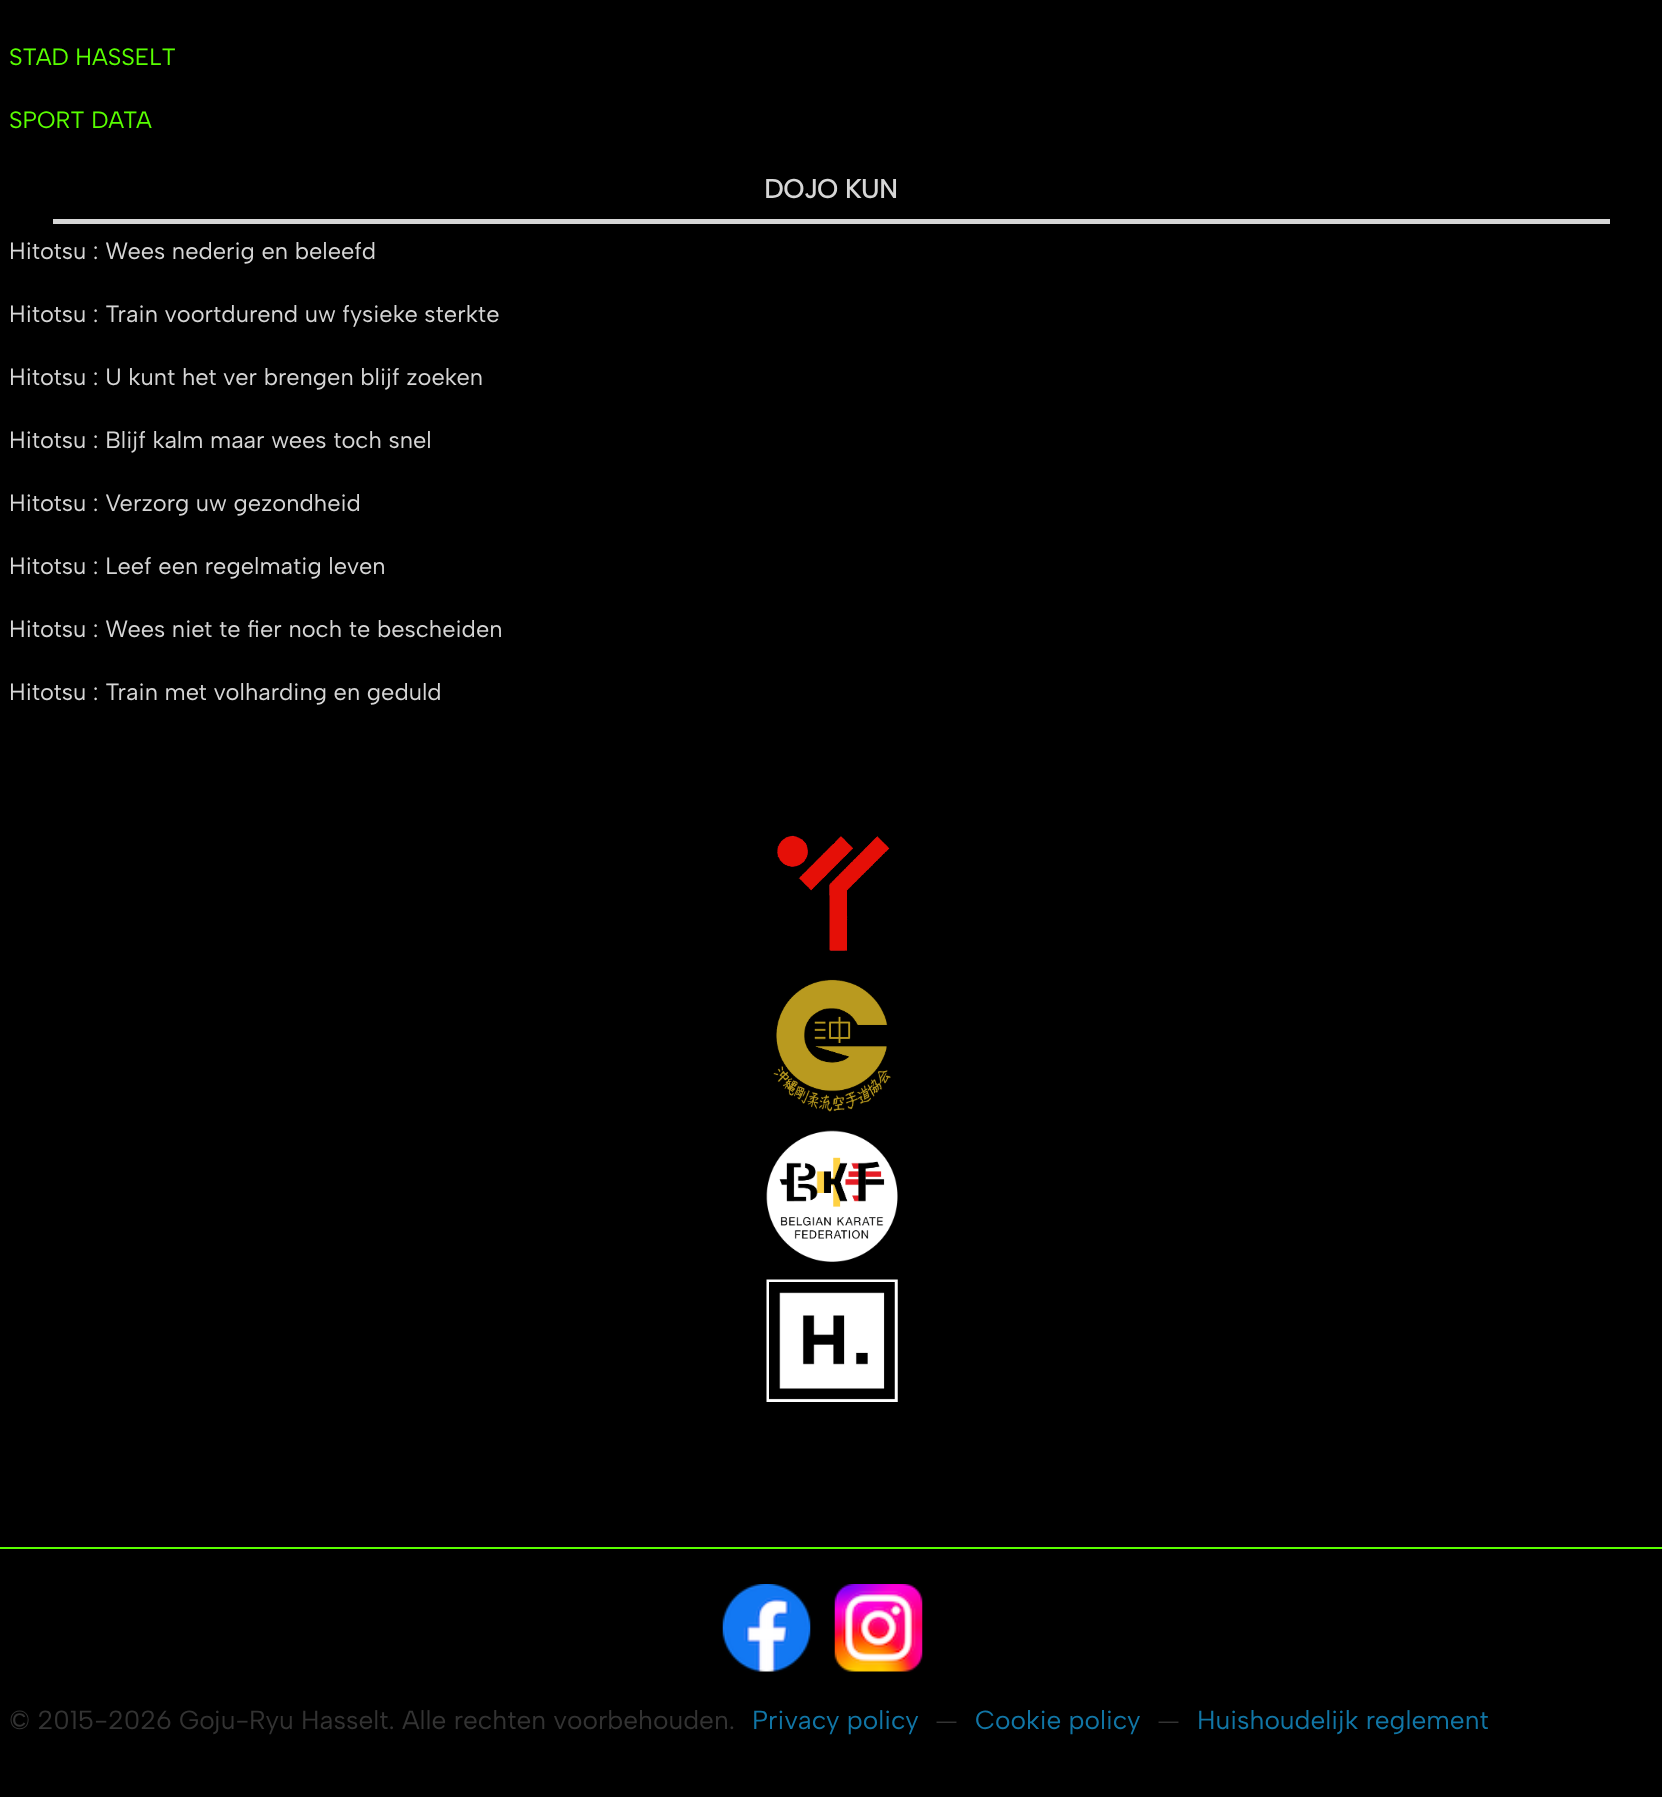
async function draw(canvas) {
  canvas.width = 1662
  canvas.height = 1797
  const ctx = canvas.getContext('2d')
  ctx.miterLimit = 4
  ctx.fontKerning = 'normal'
  async function loadImage(src) {
    const img = new Image()
    img.src = src
    await img.decode()
    return img
  }

  ctx.fillStyle = '#000'
  ctx.fillRect(0, 0, 1662, 1797)
  ctx.fillStyle = '#59ff00'
  ctx.fillRect(0, 1547, 1662, 2)
  ctx.font = '23.6px Albert Sans'
  ctx.fillText('STAD HASSELT', 9, 65)
  ctx.fillText('SPORT DATA', 9, 128)
  ctx.fillStyle = '#d6d6d6'
  ctx.fillRect(53, 219, 1557, 5)
  ctx.font = 'bold 26.25px Albert Sans'
  ctx.fillText('DOJO KUN', 764, 198)
  ctx.font = '23.6px Albert Sans'
  ctx.fillText('Hitotsu : Wees nederig en beleefd', 9, 259)
  ctx.fillText('Hitotsu : Train voortdurend uw fysieke sterkte', 9, 322)
  ctx.fillText('Hitotsu : U kunt het ver brengen blijf zoeken', 9, 385)
  ctx.fillText('Hitotsu : Blijf kalm maar wees toch snel', 9, 448)
  ctx.fillText('Hitotsu : Verzorg uw gezondheid', 9, 511)
  ctx.fillText('Hitotsu : Leef een regelmatig leven', 9, 574)
  ctx.fillText('Hitotsu : Wees niet te fier noch te bescheiden', 9, 637)
  ctx.fillText('Hitotsu : Train met volharding en geduld', 9, 700)
  ctx.drawImage(await loadImage('image0.png'), 777, 835, 113, 116)
  ctx.drawImage(await loadImage('image1.png'), 773, 979, 118, 133)
  ctx.drawImage(await loadImage('image2.png'), 766, 1130, 132, 132)
  ctx.drawImage(await loadImage('image3.png'), 766, 1279, 132, 123)
  ctx.drawImage(await loadImage('image4.png'), 722, 1584, 89, 88)
  ctx.drawImage(await loadImage('image5.png'), 834, 1584, 89, 88)
  ctx.font = '26.25px Albert Sans'
  ctx.fillStyle = '#333'
  ctx.fillText('© 2015-2026 Goju-Ryu Hasselt. Alle rechten voorbehouden.', 9, 1729)
  ctx.fillStyle = '#1176a6'
  ctx.fillText('Privacy policy', 752, 1729)
  ctx.font = '26.25px FreeSerif'
  ctx.fillStyle = '#333'
  ctx.fillText('⏤', 936, 1729)
  ctx.font = '26.25px Albert Sans'
  ctx.fillStyle = '#1176a6'
  ctx.fillText('Cookie policy', 975, 1729)
  ctx.font = '26.25px FreeSerif'
  ctx.fillStyle = '#333'
  ctx.fillText('⏤', 1158, 1729)
  ctx.font = '26.25px Albert Sans'
  ctx.fillStyle = '#1176a6'
  ctx.fillText('Huishoudelijk reglement', 1197, 1729)
}

draw(document.querySelector('canvas'))
